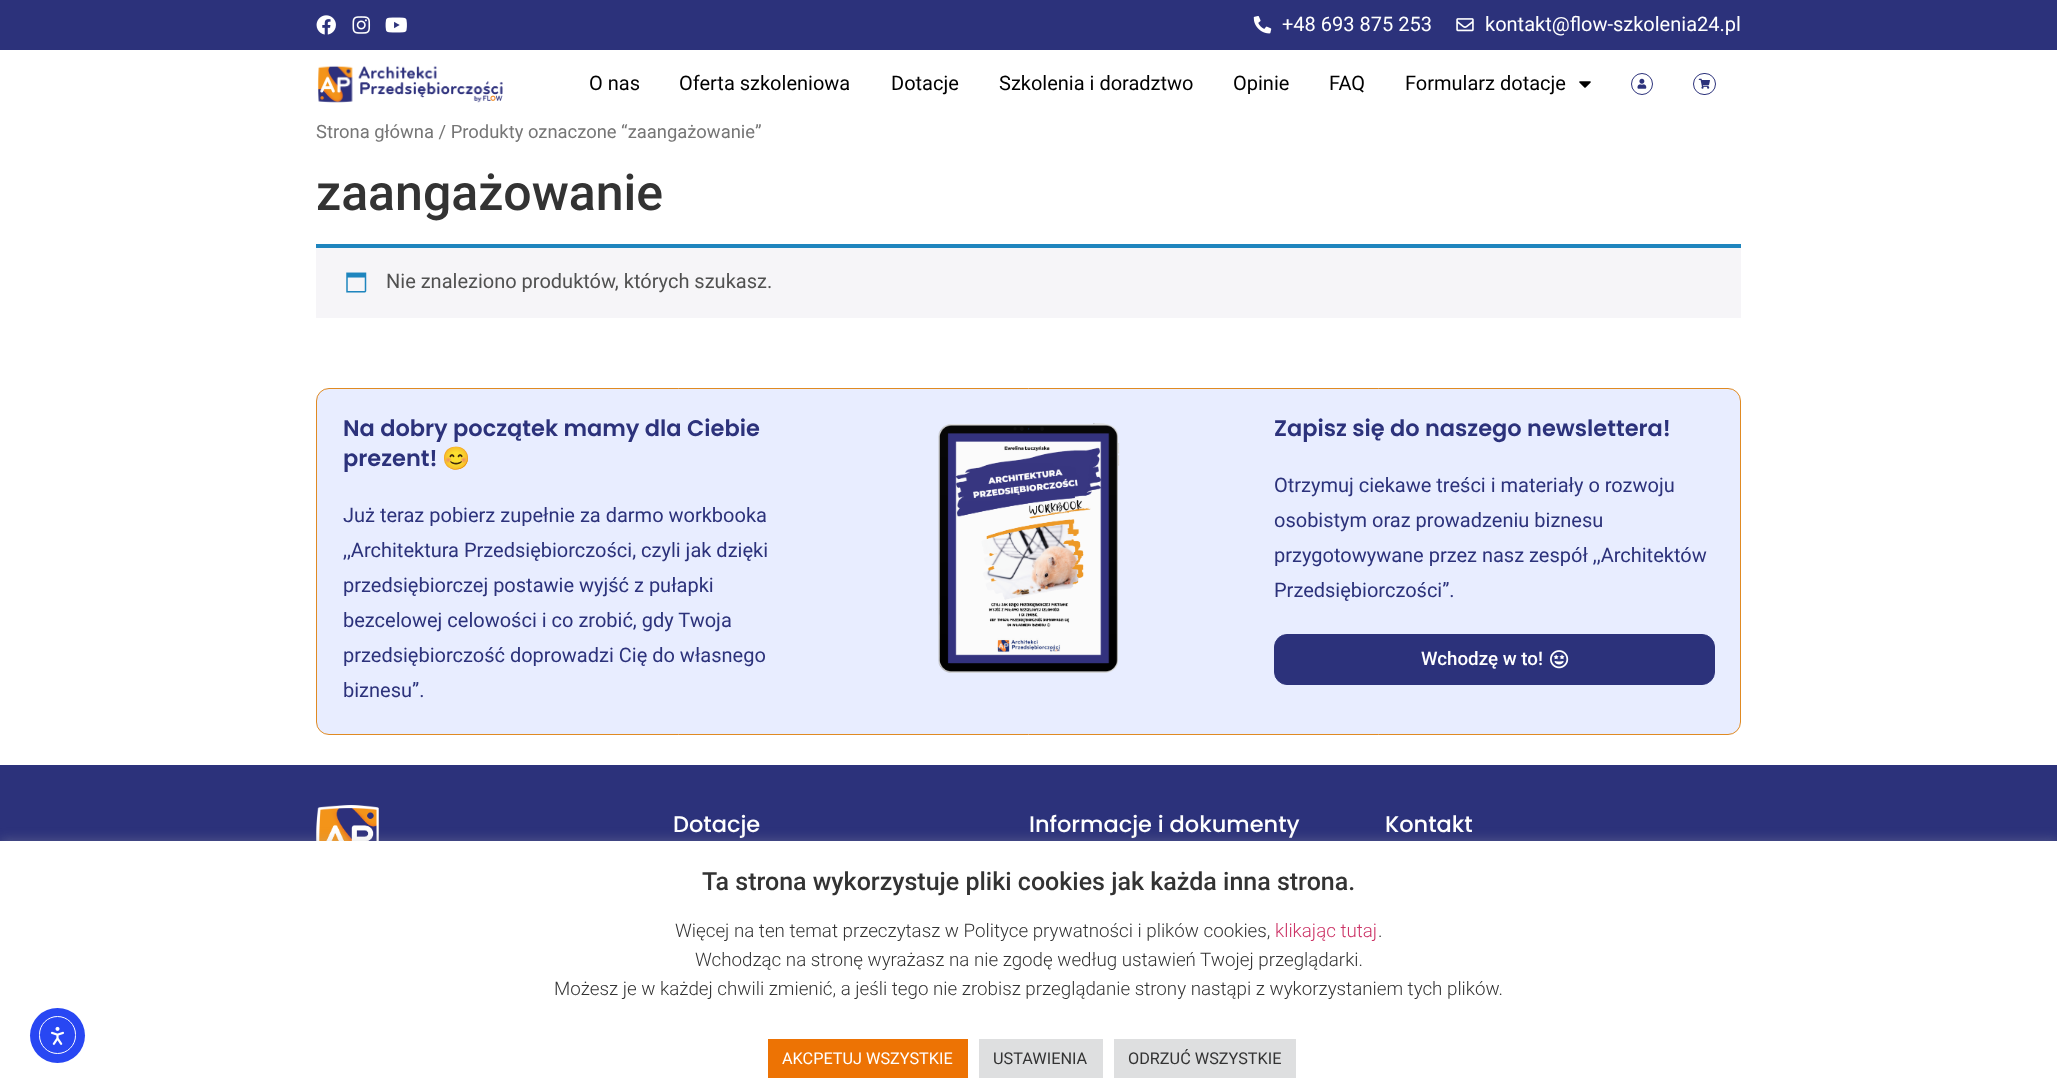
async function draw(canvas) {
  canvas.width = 2057
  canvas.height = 1092
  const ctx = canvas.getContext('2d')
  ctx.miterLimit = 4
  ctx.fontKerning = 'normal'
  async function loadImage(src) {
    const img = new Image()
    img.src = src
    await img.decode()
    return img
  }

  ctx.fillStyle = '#fff'
  ctx.fillRect(0, 0, 2057, 1092)
  ctx.fillStyle = '#2c327b'
  ctx.fillRect(0, 0, 2057, 50)
  ctx.drawImage(await loadImage('image0.png'), 316, 15, 20, 20)
  ctx.drawImage(await loadImage('image1.png'), 352, 16, 19, 18)
  ctx.drawImage(await loadImage('image2.png'), 385, 17, 22, 16)
  ctx.drawImage(await loadImage('image3.png'), 1253, 16, 19, 18)
  ctx.font = '20px Roboto'
  ctx.fillStyle = '#fff'
  ctx.fillText('+48 693 875 253', 1282, 31)
  ctx.drawImage(await loadImage('image4.png'), 1456, 18, 18, 14)
  ctx.fillText('kontakt@flow-szkolenia24.pl', 1485, 31)
  ctx.drawImage(await loadImage('image5.png'), 317, 65, 186, 38)
  ctx.fillStyle = '#000'
  ctx.fillText('O nas', 589, 90)
  ctx.fillText('Oferta szkoleniowa', 679, 90)
  ctx.fillText('Dotacje', 891, 90)
  ctx.fillText('Szkolenia i doradztwo', 999, 90)
  ctx.fillText('Opinie', 1233, 90)
  ctx.fillText('FAQ', 1329, 90)
  ctx.fillText('Formularz dotacje', 1405, 90)
  ctx.drawImage(await loadImage('image6.png'), 1579, 81, 12, 7)
  ctx.beginPath()
  ctx.arc(1642, 84, 10.5, 0, 2 * Math.PI)
  ctx.strokeStyle = '#2c327b'
  ctx.stroke()
  ctx.drawImage(await loadImage('image7.png'), 1637, 78, 10, 11)
  ctx.beginPath()
  ctx.roundRect(1693.5, 73.5, 22, 21, 10.5)
  ctx.stroke()
  ctx.drawImage(await loadImage('image8.png'), 1698, 78, 12, 11)
  ctx.font = '18.4px Roboto'
  ctx.fillStyle = '#767676'
  ctx.fillText('Strona główna / Produkty oznaczone “zaangażowanie”', 316, 138)
  ctx.font = '500 50px Roboto'
  ctx.fillStyle = '#333'
  ctx.fillText('zaangażowanie', 316, 210)
  ctx.fillStyle = '#f6f5f8'
  ctx.fillRect(316, 248, 1425, 70)
  ctx.fillStyle = '#1e85be'
  ctx.fillRect(316, 244, 1425, 4)
  ctx.drawImage(await loadImage('image9.png'), 346, 272, 21, 21)
  ctx.font = '20px Roboto'
  ctx.fillStyle = '#515151'
  ctx.fillText('Nie znaleziono produktów, których szukasz.', 386, 288)
  ctx.fillStyle = '#e8edff'
  ctx.beginPath()
  ctx.roundRect(316.5, 388.5, 1424, 346, 12.5)
  ctx.fill()
  ctx.strokeStyle = '#e08a22'
  ctx.stroke()
  ctx.font = '600 22.5px Poppins'
  ctx.fillStyle = '#2c327b'
  ctx.fillText('Na dobry początek mamy dla Ciebie', 343, 436)
  ctx.fillText('prezent!', 343, 466)
  ctx.font = 'bold 22.5px Noto Color Emoji'
  ctx.fillText('😊', 442, 466)
  ctx.font = '20px Roboto'
  ctx.fillText('Już teraz pobierz zupełnie za darmo workbooka', 343, 522)
  ctx.fillText(',,Architektura Przedsiębiorczości, czyli jak dzięki', 343, 557)
  ctx.fillText('przedsiębiorczej postawie wyjść z pułapki', 343, 592)
  ctx.fillText('bezcelowej celowości i co zrobić, gdy Twoja', 343, 627)
  ctx.fillText('przedsiębiorczość doprowadzi Cię do własnego', 343, 662)
  ctx.fillText('biznesu”.', 343, 697)
  ctx.drawImage(await loadImage('image10.png'), 938, 423, 182, 250)
  ctx.font = '600 22.5px Poppins'
  ctx.fillText('Zapisz się do naszego newslettera!', 1274, 436)
  ctx.font = '20px Roboto'
  ctx.fillText('Otrzymuj ciekawe treści i materiały o rozwoju', 1274, 492)
  ctx.fillText('osobistym oraz prowadzeniu biznesu', 1274, 527)
  ctx.fillText('przygotowywane przez nasz zespół ,,Architektów', 1274, 562)
  ctx.fillText('Przedsiębiorczości”.', 1274, 597)
  ctx.beginPath()
  ctx.roundRect(1274.5, 634.5, 440, 50, 12.5)
  ctx.fill()
  ctx.strokeStyle = '#2c327b'
  ctx.stroke()
  ctx.font = '500 18.75px Roboto'
  ctx.fillStyle = '#fff'
  ctx.fillText('Wchodzę w to!', 1421, 665)
  ctx.drawImage(await loadImage('image11.png'), 1550, 650, 19, 19)
  ctx.fillStyle = '#2c327b'
  ctx.fillRect(0, 765, 2057, 76)
  ctx.drawImage(await loadImage('image12.png'), 316, 805, 63, 36)
  ctx.font = '500 22.5px Poppins'
  ctx.fillStyle = '#fff'
  ctx.fillText('Dotacje', 673, 832)
  ctx.fillText('Informacje i dokumenty', 1029, 832)
  ctx.fillText('Kontakt', 1385, 832)
  ctx.fillStyle = '#acabab4d'
  ctx.filter = 'blur(6px)'
  ctx.beginPath()
  ctx.rect(0, 840, 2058, 251)
  ctx.fill()
  ctx.filter = 'none'
  ctx.fillStyle = '#fff'
  ctx.fillRect(0, 841, 2057, 251)
  ctx.fillStyle = '#2847f3'
  ctx.beginPath()
  ctx.arc(57.5, 1035.5, 27.5, 0, 2 * Math.PI)
  ctx.fill()
  ctx.beginPath()
  ctx.roundRect(39.5, 1016.5, 36, 37, 18)
  ctx.strokeStyle = '#fff'
  ctx.stroke()
  ctx.drawImage(await loadImage('image13.png'), 51, 1026, 13, 19)
  ctx.font = '500 25px Roboto'
  ctx.fillStyle = '#333'
  ctx.fillText('Ta strona wykorzystuje pliki cookies jak każda inna strona.', 702, 890)
  ctx.font = '300 18.75px Roboto'
  ctx.fillText('Więcej na ten temat przeczytasz w Polityce prywatności i plików cookies,', 675, 937)
  ctx.fillStyle = '#c36'
  ctx.fillText('klikając tutaj', 1275, 937)
  ctx.fillStyle = '#333'
  ctx.fillText('.', 1378, 937)
  ctx.fillText('Wchodząc na stronę wyrażasz na nie zgodę według ustawień Twojej przeglądarki.', 695, 966)
  ctx.fillText('Możesz je w każdej chwili zmienić, a jeśli tego nie zrobisz przeglądanie strony nastąpi z wykorzystaniem tych plików.', 554, 995)
  ctx.fillStyle = '#ed7304'
  ctx.fillRect(768, 1039, 200, 39)
  ctx.font = '16.25px Roboto'
  ctx.fillStyle = '#fff'
  ctx.fillText('AKCPETUJ WSZYSTKIE', 782, 1064)
  ctx.fillStyle = '#dedfe0'
  ctx.fillRect(979, 1039, 124, 39)
  ctx.fillStyle = '#333'
  ctx.fillText('USTAWIENIA', 993, 1064)
  ctx.fillStyle = '#dedfe0'
  ctx.fillRect(1114, 1039, 182, 39)
  ctx.fillStyle = '#333'
  ctx.fillText('ODRZUĆ WSZYSTKIE', 1128, 1064)
}

draw(document.querySelector('canvas'))
